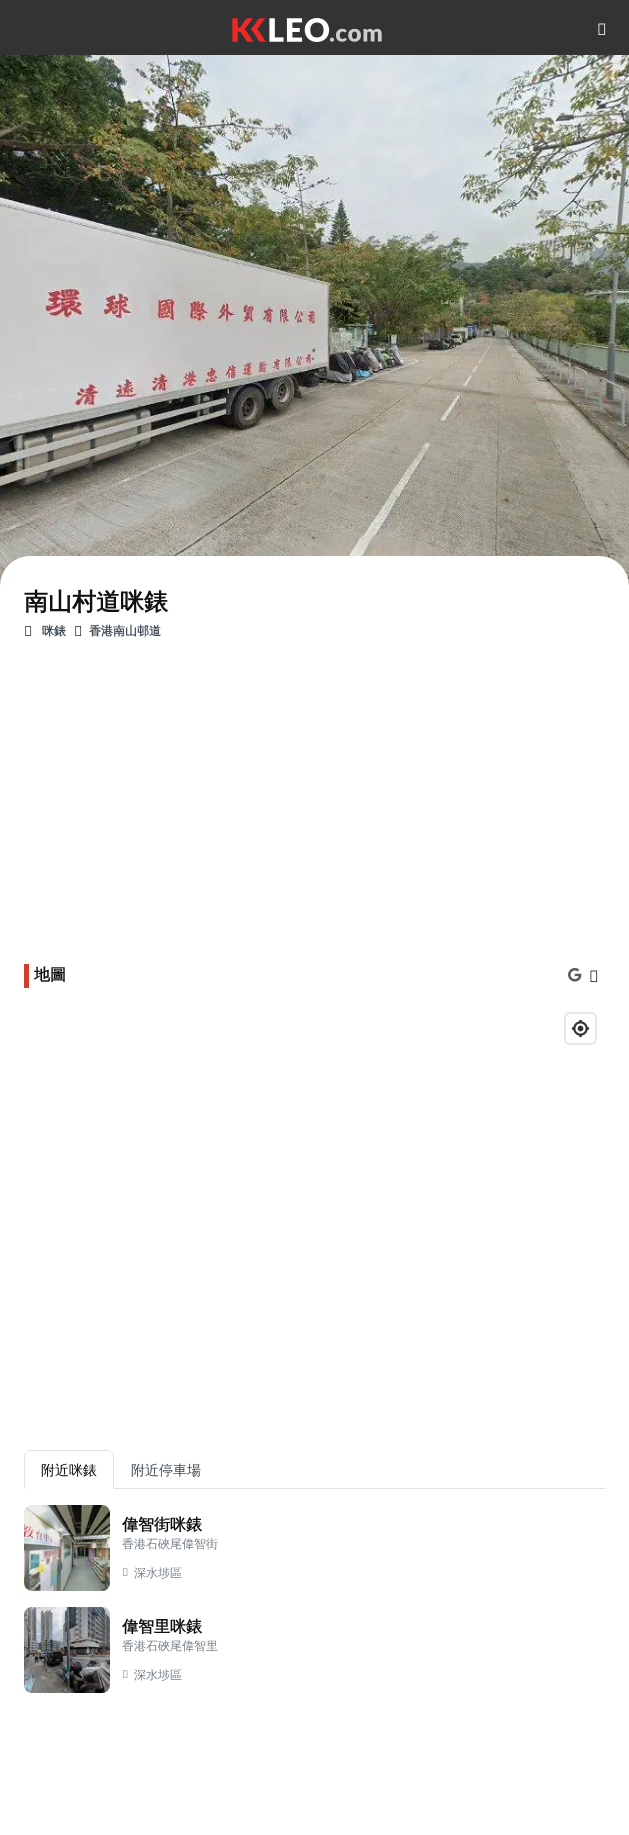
async function draw(canvas) {
  canvas.width = 629
  canvas.height = 1835
  const ctx = canvas.getContext('2d')
  ctx.miterLimit = 4
  ctx.fontKerning = 'normal'
  async function loadImage(src) {
    const img = new Image()
    img.src = src
    await img.decode()
    return img
  }

  ctx.fillStyle = '#fff'
  ctx.fillRect(0, 0, 629, 1835)
  ctx.fillStyle = '#333'
  ctx.fillRect(0, 0, 629, 55)
  ctx.drawImage(await loadImage('image0.png'), 232, 18, 150, 24)
  ctx.drawImage(await loadImage('image1.png'), 598, 23, 8, 12)
  ctx.drawImage(await loadImage('image2.png'), 0, 55, 629, 531)
  ctx.fillStyle = '#fff'
  ctx.beginPath()
  ctx.roundRect(0, 556, 629, 1161, [30, 30, 0, 0])
  ctx.fill()
  ctx.font = 'bold 24px WenQuanYi Zen Hei'
  ctx.fillStyle = '#111'
  ctx.fillText('南山村道咪錶', 24, 610)
  ctx.drawImage(await loadImage('image3.png'), 25, 626, 7, 10)
  ctx.font = 'bold 12px WenQuanYi Zen Hei'
  ctx.fillStyle = '#434e58'
  ctx.fillText('咪錶', 42, 635)
  ctx.drawImage(await loadImage('image3.png'), 75, 626, 7, 10)
  ctx.fillText('香港南山邨道', 89, 635)
  ctx.fillStyle = '#d23d2c'
  ctx.fillRect(24, 964, 5, 24)
  ctx.font = 'bold 16px WenQuanYi Zen Hei'
  ctx.fillStyle = '#111'
  ctx.fillText('地圖', 34, 980)
  ctx.drawImage(await loadImage('image4.png'), 568, 968, 14, 14)
  ctx.drawImage(await loadImage('image5.png'), 590, 970, 8, 12)
  ctx.beginPath()
  ctx.roundRect(565, 1013, 31, 31, 5)
  ctx.strokeStyle = '#e6e6e6'
  ctx.lineWidth = 2
  ctx.stroke()
  ctx.fillStyle = '#fff'
  ctx.beginPath()
  ctx.roundRect(566, 1014, 29, 29, 4)
  ctx.fill()
  ctx.drawImage(await loadImage('image6.png'), 571, 1019, 19, 19)
  ctx.fillStyle = '#dee2e6'
  ctx.fillRect(114, 1488, 491, 1)
  ctx.beginPath()
  ctx.moveTo(30, 1450)
  ctx.bezierCurveTo(28, 1450, 27, 1451, 26, 1452)
  ctx.lineTo(29, 1451)
  ctx.lineTo(109, 1451)
  ctx.lineTo(112, 1452)
  ctx.bezierCurveTo(111, 1451, 110, 1450, 108, 1450)
  ctx.closePath()
  ctx.fill()
  ctx.beginPath()
  ctx.moveTo(114, 1489)
  ctx.lineTo(114, 1456)
  ctx.bezierCurveTo(114, 1454.5, 113, 1453, 112, 1452)
  ctx.lineTo(111.5, 1452.5)
  ctx.bezierCurveTo(112.5, 1453, 113, 1454.5, 113, 1456)
  ctx.lineTo(113, 1488)
  ctx.closePath()
  ctx.fill()
  ctx.fillStyle = '#fff'
  ctx.beginPath()
  ctx.moveTo(114, 1489)
  ctx.lineTo(113, 1488)
  ctx.lineTo(25, 1488)
  ctx.lineTo(24, 1489)
  ctx.closePath()
  ctx.fill()
  ctx.fillStyle = '#dee2e6'
  ctx.beginPath()
  ctx.moveTo(24, 1489)
  ctx.lineTo(25, 1488)
  ctx.lineTo(25, 1456)
  ctx.bezierCurveTo(25, 1454.5, 25.5, 1453, 26.5, 1452.5)
  ctx.lineTo(26, 1452)
  ctx.bezierCurveTo(25, 1453, 24, 1454.5, 24, 1456)
  ctx.closePath()
  ctx.fill()
  ctx.font = '500 14px WenQuanYi Zen Hei'
  ctx.fillStyle = '#000'
  ctx.fillText('附近咪錶', 41, 1475)
  ctx.fillStyle = '#434e58'
  ctx.fillText('附近停車場', 131, 1475)
  ctx.drawImage(await loadImage('image7.png'), 24, 1505, 86, 86)
  ctx.font = 'bold 16px WenQuanYi Zen Hei'
  ctx.fillStyle = '#111'
  ctx.fillText('偉智街咪錶', 122, 1530)
  ctx.font = '500 12px WenQuanYi Zen Hei'
  ctx.fillStyle = '#78828a'
  ctx.fillText('香港石硤尾偉智街', 122, 1548)
  ctx.drawImage(await loadImage('image8.png'), 123, 1568, 5, 8)
  ctx.fillText('深水埗區', 134, 1577)
  ctx.drawImage(await loadImage('image9.png'), 24, 1607, 86, 86)
  ctx.font = 'bold 16px WenQuanYi Zen Hei'
  ctx.fillStyle = '#111'
  ctx.fillText('偉智里咪錶', 122, 1632)
  ctx.font = '500 12px WenQuanYi Zen Hei'
  ctx.fillStyle = '#78828a'
  ctx.fillText('香港石硤尾偉智里', 122, 1650)
  ctx.drawImage(await loadImage('image8.png'), 123, 1670, 5, 8)
  ctx.fillText('深水埗區', 134, 1679)
}

draw(document.querySelector('canvas'))
